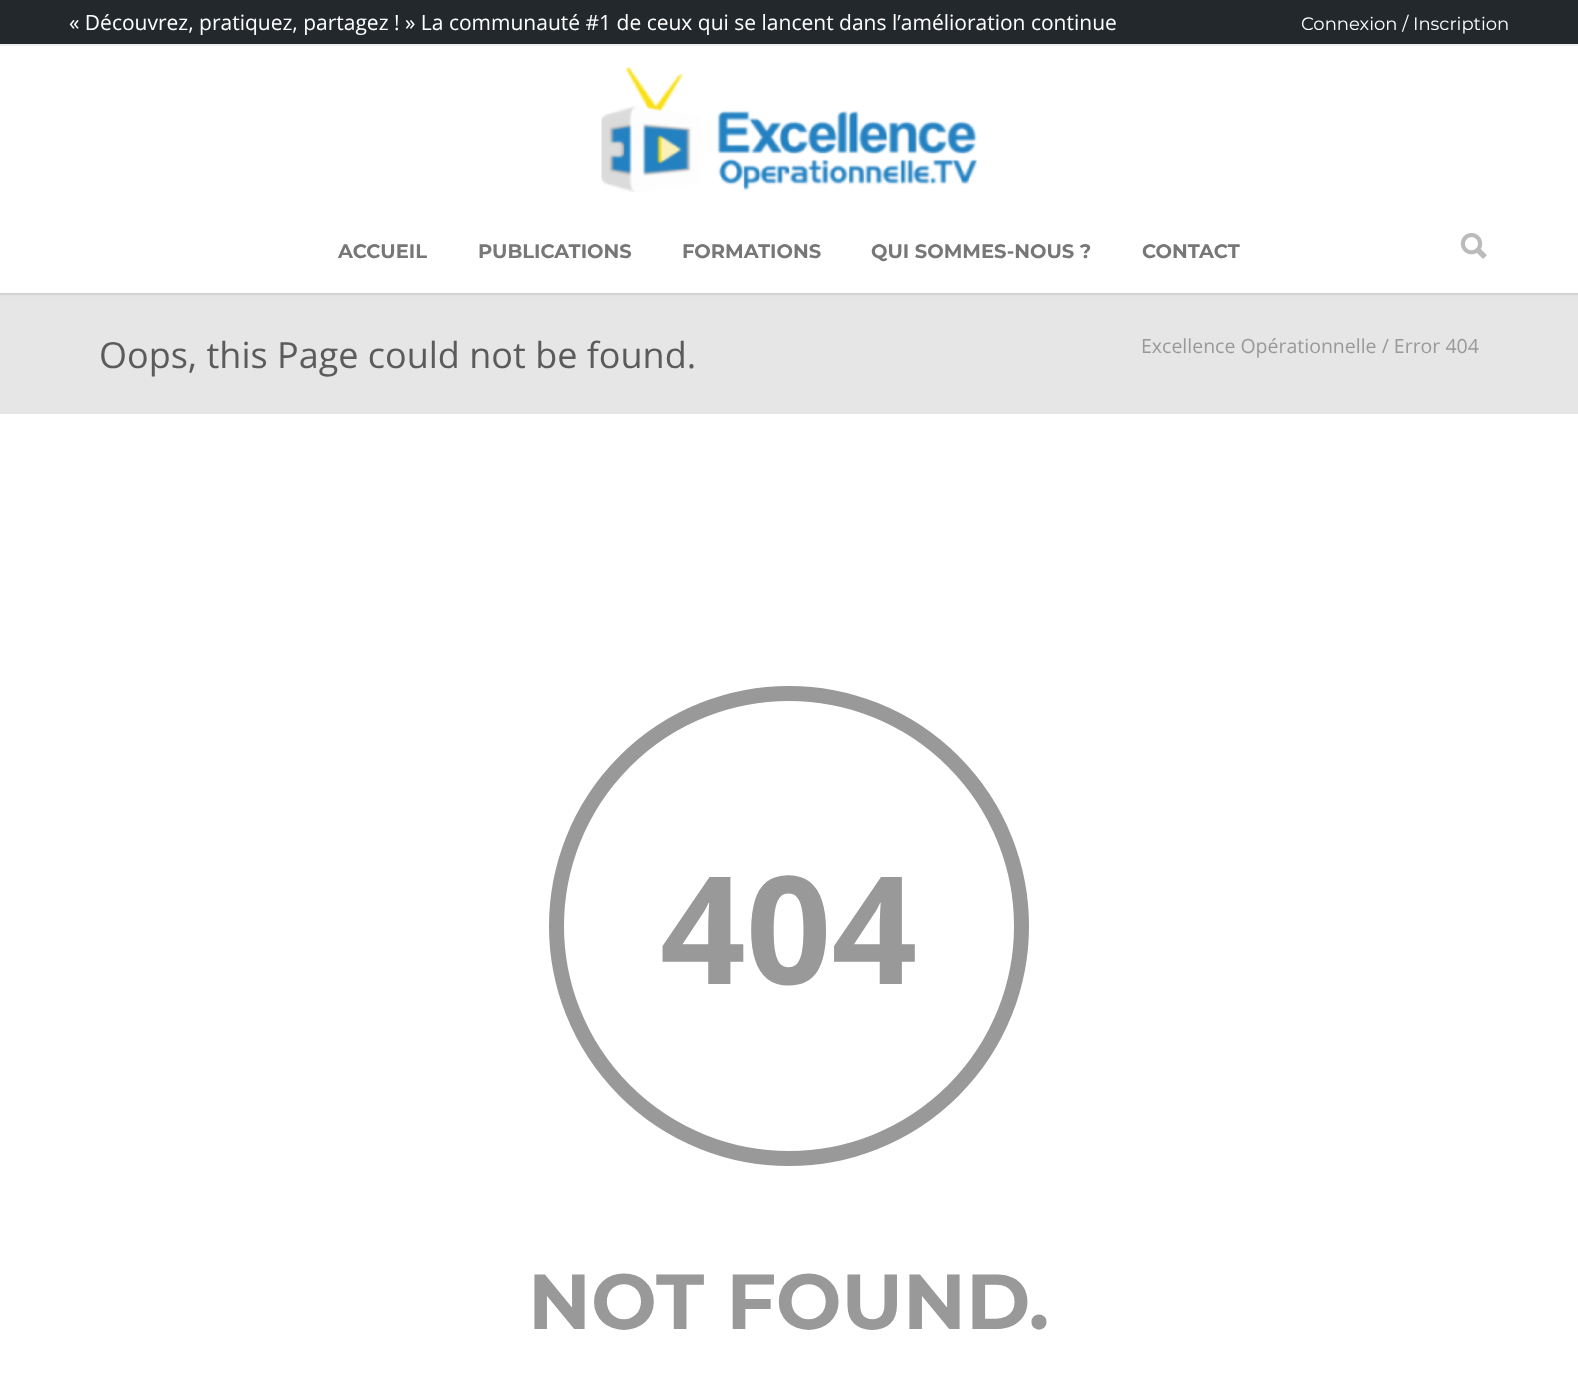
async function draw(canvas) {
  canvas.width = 1578
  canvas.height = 1388
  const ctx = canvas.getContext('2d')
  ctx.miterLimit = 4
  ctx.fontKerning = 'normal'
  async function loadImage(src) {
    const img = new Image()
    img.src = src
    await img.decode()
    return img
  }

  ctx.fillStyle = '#fff'
  ctx.fillRect(0, 0, 1578, 1388)
  ctx.fillStyle = '#e6e6e6'
  ctx.fillRect(0, 293, 1578, 121)
  ctx.fillStyle = '#00000029'
  ctx.filter = 'blur(1.5px)'
  ctx.beginPath()
  ctx.rect(-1, -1, 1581, 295)
  ctx.fill()
  ctx.filter = 'none'
  ctx.fillStyle = '#fff'
  ctx.fillRect(0, 46, 1578, 247)
  ctx.fillStyle = '#23282d'
  ctx.fillRect(0, 0, 1578, 44)
  ctx.font = '21px Open Sans'
  ctx.fillStyle = '#fff'
  ctx.fillText('« Découvrez, pratiquez, partagez ! » La communauté #1 de ceux qui se lancent dans l’amélioration continue', 69, 30)
  ctx.font = '18px Montserrat'
  ctx.fillText('Connexion / Inscription', 1301, 30)
  ctx.fillStyle = '#efefef'
  ctx.fillRect(0, 44, 1578, 2)
  ctx.drawImage(await loadImage('image0.png'), 601, 67, 376, 125)
  ctx.font = 'bold 19.5px Montserrat'
  ctx.fillStyle = '#777'
  ctx.fillText('ACCUEIL', 338, 258)
  ctx.fillText('PUBLICATIONS', 478, 258)
  ctx.fillText('FORMATIONS', 682, 258)
  ctx.fillText('QUI SOMMES-NOUS ?', 871, 258)
  ctx.fillText('CONTACT', 1142, 258)
  ctx.drawImage(await loadImage('image1.png'), 1460, 233, 27, 26)
  ctx.font = '36px Open Sans'
  ctx.fillStyle = '#5b5b5b'
  ctx.fillText('Oops, this Page could not be found.', 99, 368)
  ctx.font = '19.5px Open Sans'
  ctx.fillStyle = '#999'
  ctx.fillText('Excellence Opérationnelle / Error 404', 1141, 353)
  ctx.beginPath()
  ctx.arc(789, 926, 232.5, 0, 2 * Math.PI)
  ctx.strokeStyle = '#999'
  ctx.lineWidth = 15
  ctx.stroke()
  ctx.font = 'bold 150px Open Sans'
  ctx.fillText('404', 660, 984)
  ctx.font = 'bold 78px Montserrat'
  ctx.fillText('NOT FOUND.', 528, 1329)
}

draw(document.querySelector('canvas'))
